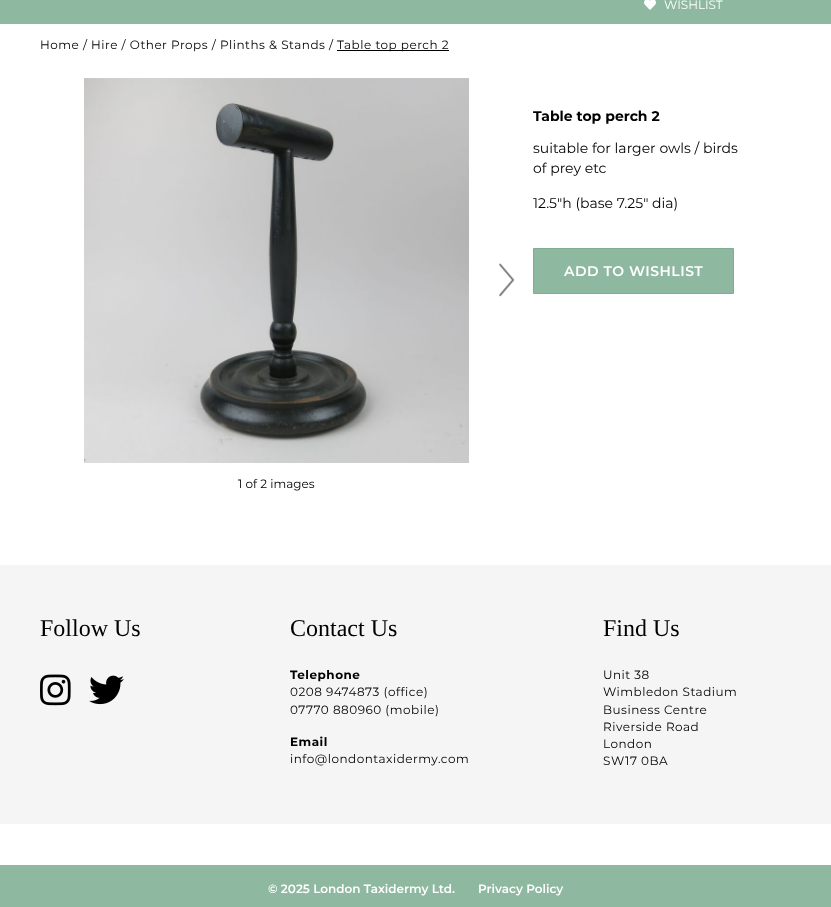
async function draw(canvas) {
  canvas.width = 831
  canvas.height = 907
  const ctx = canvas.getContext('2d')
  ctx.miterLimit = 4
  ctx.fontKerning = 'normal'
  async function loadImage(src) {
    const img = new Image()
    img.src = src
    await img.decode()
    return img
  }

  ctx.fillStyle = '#fff'
  ctx.fillRect(0, 0, 831, 907)
  ctx.fillStyle = '#8eb89f'
  ctx.fillRect(0, 0, 831, 24)
  ctx.drawImage(await loadImage('image0.png'), 644, 0, 12, 10)
  ctx.font = '12px Montserrat'
  ctx.fillStyle = '#fff'
  ctx.fillText('WISHLIST', 664, 9)
  ctx.letterSpacing = '0.5px'
  ctx.fillStyle = '#000'
  ctx.fillText('Home / Hire / Other Props / Plinths & Stands /', 40, 49)
  ctx.fillRect(337, 50, 112, 1)
  ctx.fillText('Table top perch 2', 337, 49)
  ctx.letterSpacing = '0px'
  ctx.font = 'bold 14px Montserrat'
  ctx.fillText('Table top perch 2', 533, 121)
  ctx.font = '14px Montserrat'
  ctx.fillText('suitable for larger owls / birds', 533, 153)
  ctx.fillText('of prey etc', 533, 173)
  ctx.fillText('12.5"h (base 7.25" dia)', 533, 208)
  ctx.fillStyle = '#8eb89f'
  ctx.beginPath()
  ctx.rect(533.5, 248.5, 200, 45)
  ctx.fill()
  ctx.strokeStyle = '#7eae92'
  ctx.stroke()
  ctx.letterSpacing = '0.5px'
  ctx.font = '600 14px Montserrat'
  ctx.fillStyle = '#fff'
  ctx.fillText('ADD TO WISHLIST', 564, 276)
  ctx.drawImage(await loadImage('image1.png'), 84, 78, 385, 385)
  ctx.drawImage(await loadImage('image2.png'), 499, 263, 16, 34)
  ctx.letterSpacing = '0px'
  ctx.font = '12px Montserrat'
  ctx.fillStyle = '#000'
  ctx.fillText('1 of 2 images', 238, 488)
  ctx.fillStyle = '#f5f5f5'
  ctx.fillRect(0, 565, 831, 259)
  ctx.font = '24px Liberation Serif'
  ctx.fillStyle = '#000'
  ctx.fillText('Follow Us', 40, 636)
  ctx.drawImage(await loadImage('image3.png'), 40, 674, 31, 32)
  ctx.drawImage(await loadImage('image4.png'), 89, 675, 35, 30)
  ctx.fillText('Contact Us', 290, 636)
  ctx.letterSpacing = '0.5px'
  ctx.font = 'bold 12px Montserrat'
  ctx.fillText('Telephone', 290, 679)
  ctx.font = '12px Montserrat'
  ctx.fillText('0208 9474873 (office)', 290, 696)
  ctx.fillText('07770 880960 (mobile)', 290, 714)
  ctx.font = 'bold 12px Montserrat'
  ctx.fillText('Email', 290, 746)
  ctx.font = '12px Montserrat'
  ctx.fillText('info@londontaxidermy.com', 290, 763)
  ctx.letterSpacing = '0px'
  ctx.font = '24px Liberation Serif'
  ctx.fillText('Find Us', 603, 636)
  ctx.letterSpacing = '0.5px'
  ctx.font = '12px Montserrat'
  ctx.fillText('Unit 38', 603, 679)
  ctx.fillText('Wimbledon Stadium', 603, 696)
  ctx.fillText('Business Centre', 603, 714)
  ctx.fillText('Riverside Road', 603, 731)
  ctx.fillText('London', 603, 748)
  ctx.fillText('SW17 0BA', 603, 765)
  ctx.fillStyle = '#8eb89f'
  ctx.fillRect(0, 865, 831, 42)
  ctx.letterSpacing = '0px'
  ctx.font = '600 12px Montserrat'
  ctx.fillStyle = '#fff'
  ctx.fillText('© 2025 London Taxidermy Ltd.', 268, 893)
  ctx.fillText('Privacy Policy', 478, 893)
}

draw(document.querySelector('canvas'))
